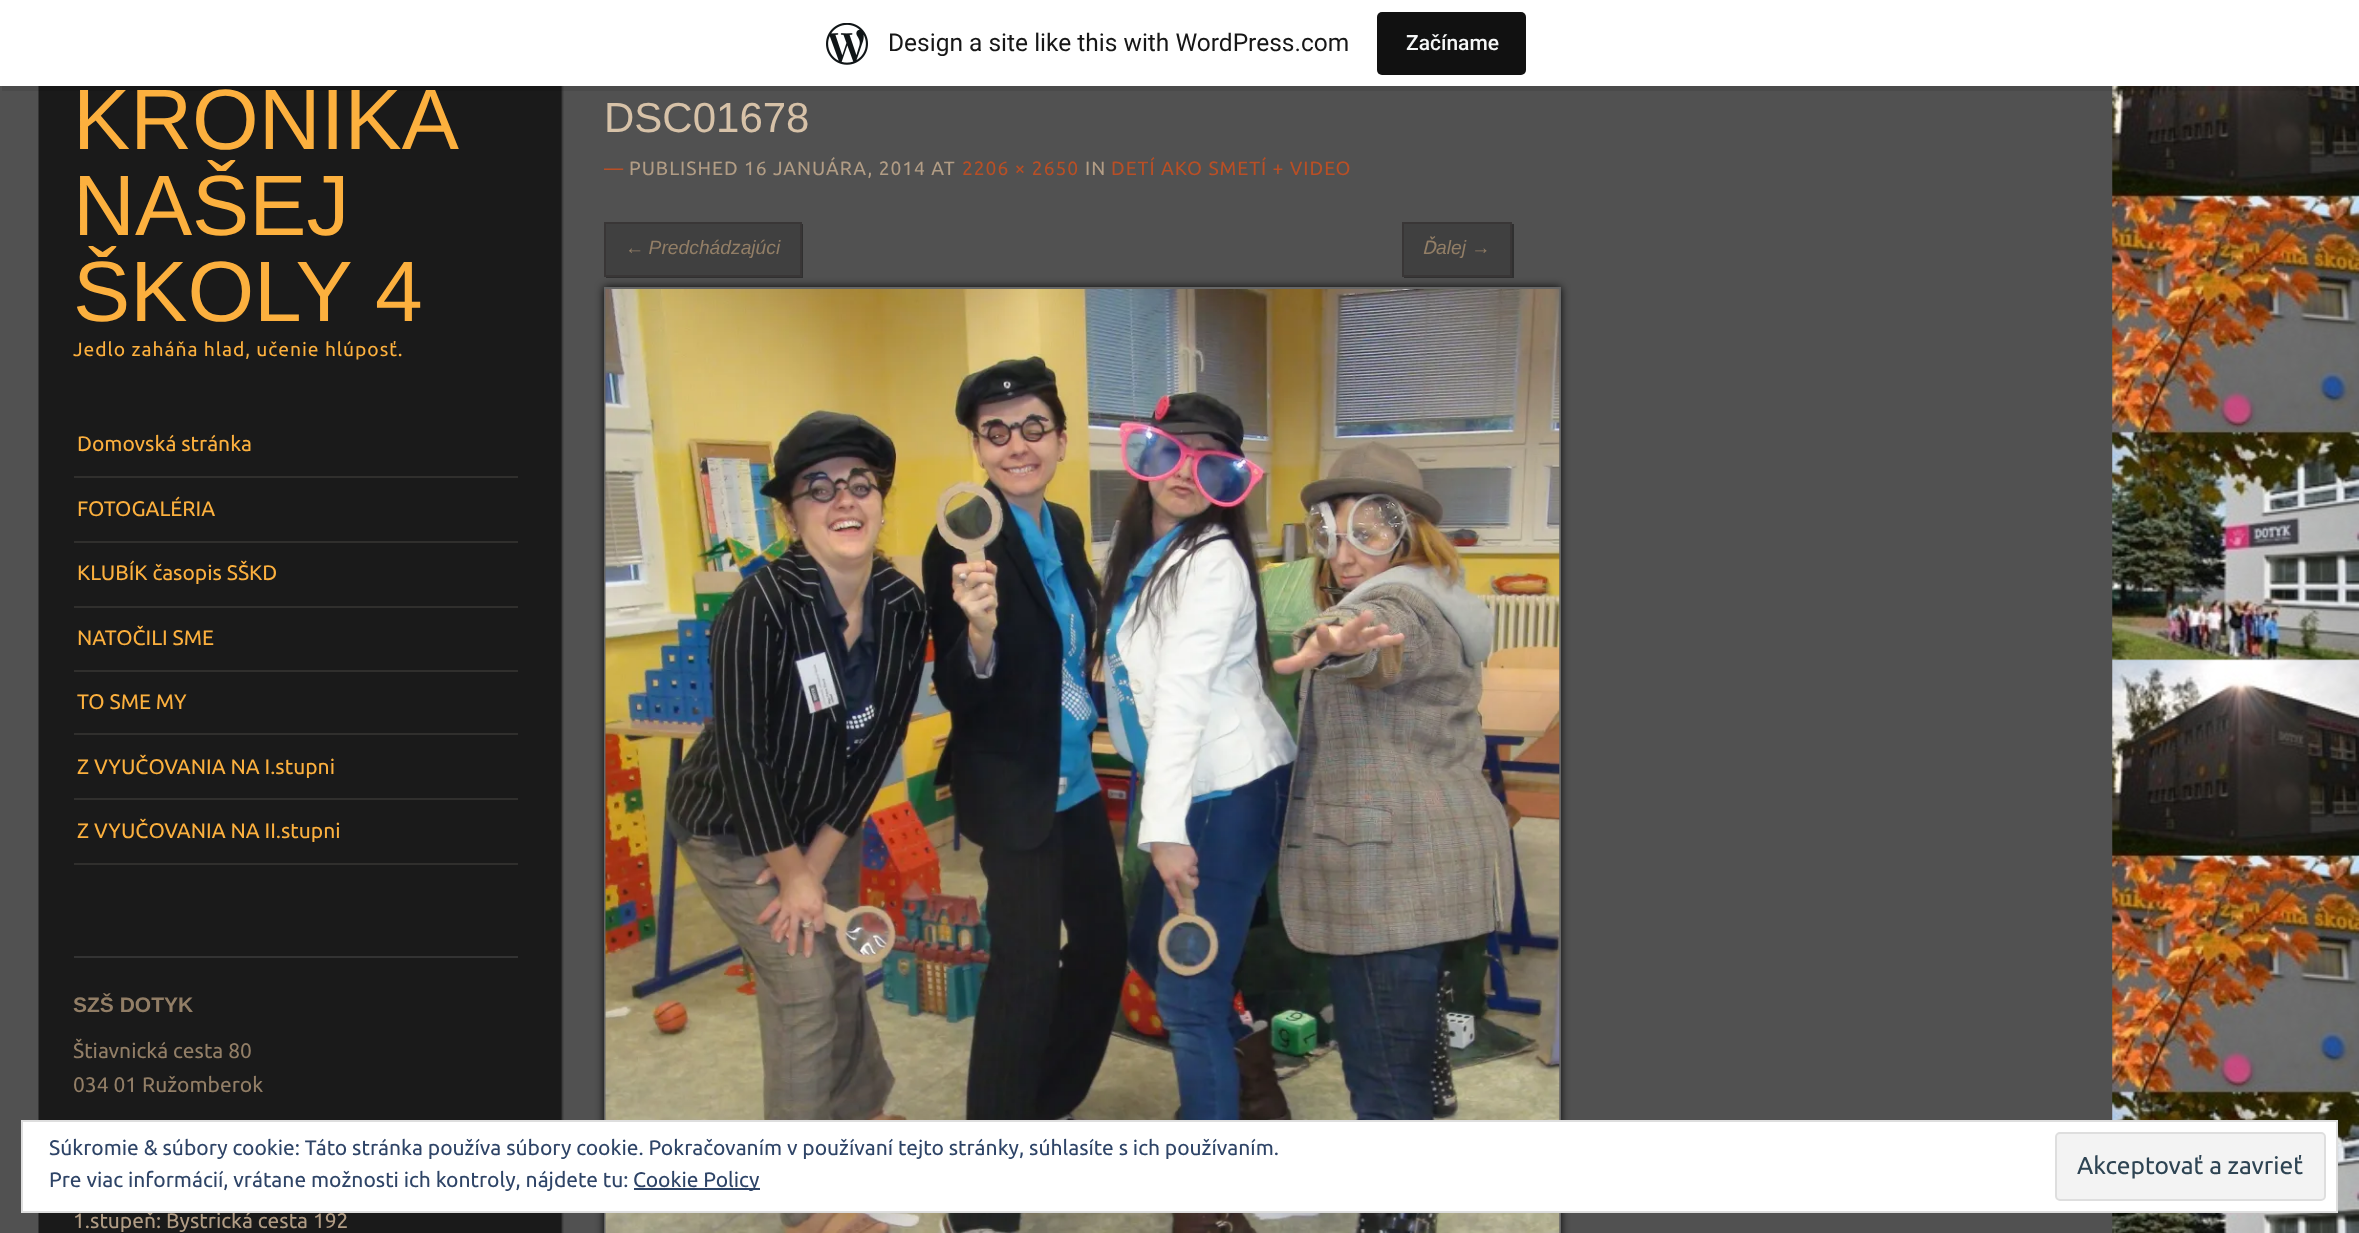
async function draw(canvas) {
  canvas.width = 2359
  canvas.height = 1233
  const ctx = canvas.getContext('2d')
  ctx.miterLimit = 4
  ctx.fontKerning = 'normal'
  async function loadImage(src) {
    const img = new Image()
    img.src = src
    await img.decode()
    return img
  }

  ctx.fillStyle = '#515151'
  ctx.fillRect(0, 0, 2359, 1233)
  ctx.drawImage(await loadImage('image0.png'), 2112, 86, 247, 1147)
  ctx.drawImage(await loadImage('image2.png'), 38, 86, 526, 1147)
  ctx.fillStyle = '#00000014'
  ctx.beginPath()
  ctx.moveTo(2, 86)
  ctx.lineTo(2, 91)
  ctx.lineTo(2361, 91)
  ctx.lineTo(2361, 5)
  ctx.lineTo(2359, 5)
  ctx.lineTo(2359, 86)
  ctx.closePath()
  ctx.fill()
  ctx.fillStyle = '#fff'
  ctx.fillRect(0, 0, 2359, 86)
  ctx.drawImage(await loadImage('image1.png'), 826, 23, 42, 42)
  ctx.font = '24.5px Roboto'
  ctx.fillStyle = '#171717'
  ctx.fillText('Design a site like this with WordPress.com', 888, 51)
  ctx.fillStyle = '#111'
  ctx.beginPath()
  ctx.roundRect(1377, 12, 149, 63, 5)
  ctx.fill()
  ctx.font = '500 21px Roboto'
  ctx.fillStyle = '#f6f7f7'
  ctx.fillText('Začíname', 1406, 50)
  ctx.font = '85.75px Liberation Sans'
  ctx.fillStyle = '#fcb03e'
  ctx.fillText('KRONIKA', 73, 149)
  ctx.fillText('NAŠEJ', 73, 235)
  ctx.fillText('ŠKOLY 4', 73, 321)
  ctx.letterSpacing = '0.95px'
  ctx.font = '19.25px Ubuntu'
  ctx.fillText('Jedlo zaháňa hlad, učenie hlúposť.', 73, 356)
  ctx.fillStyle = '#302f2d'
  ctx.fillRect(74, 476, 444, 2)
  ctx.letterSpacing = '0px'
  ctx.font = '21px Ubuntu'
  ctx.fillStyle = '#fcb03e'
  ctx.fillText('Domovská stránka', 77, 451)
  ctx.fillStyle = '#302f2d'
  ctx.fillRect(74, 541, 444, 2)
  ctx.fillStyle = '#fcb03e'
  ctx.fillText('FOTOGALÉRIA', 77, 516)
  ctx.fillStyle = '#302f2d'
  ctx.fillRect(74, 606, 444, 2)
  ctx.fillStyle = '#fcb03e'
  ctx.fillText('KLUBÍK časopis SŠKD', 77, 580)
  ctx.fillStyle = '#302f2d'
  ctx.fillRect(74, 670, 444, 2)
  ctx.fillStyle = '#fcb03e'
  ctx.fillText('NATOČILI SME', 77, 645)
  ctx.fillStyle = '#302f2d'
  ctx.fillRect(74, 733, 444, 2)
  ctx.fillStyle = '#fcb03e'
  ctx.fillText('TO SME MY', 77, 709)
  ctx.fillStyle = '#302f2d'
  ctx.fillRect(74, 798, 444, 2)
  ctx.fillStyle = '#fcb03e'
  ctx.fillText('Z VYUČOVANIA NA I.stupni', 77, 774)
  ctx.fillStyle = '#302f2d'
  ctx.fillRect(74, 863, 444, 2)
  ctx.fillStyle = '#fcb03e'
  ctx.fillText('Z VYUČOVANIA NA II.stupni', 77, 838)
  ctx.fillStyle = '#333'
  ctx.fillRect(74, 956, 444, 2)
  ctx.font = 'bold 21px Liberation Sans'
  ctx.fillStyle = '#927e66'
  ctx.fillText('SZŠ DOTYK', 73, 1012)
  ctx.font = '21px Ubuntu'
  ctx.fillText('Štiavnická cesta 80', 73, 1058)
  ctx.fillText('034 01 Ružomberok', 73, 1092)
  ctx.fillStyle = '#b29d85'
  ctx.fillText('1.stupeň: Bystrická cesta 192', 73, 1228)
  ctx.font = '42px Liberation Sans'
  ctx.fillStyle = '#d7c2a8'
  ctx.fillText('DSC01678', 604, 132)
  ctx.letterSpacing = '0.95px'
  ctx.font = '19.25px Ubuntu'
  ctx.fillStyle = '#b94f25'
  ctx.fillText('—', 604, 175)
  ctx.fillStyle = '#b29d85'
  ctx.fillText('PUBLISHED 16 JANUÁRA, 2014 AT', 629, 175)
  ctx.fillStyle = '#b94f25'
  ctx.fillText('2206 × 2650', 962, 175)
  ctx.fillStyle = '#b29d85'
  ctx.fillText('IN', 1085, 175)
  ctx.fillStyle = '#b94f25'
  ctx.fillText('DETÍ AKO SMETÍ + VIDEO', 1111, 175)
  ctx.fillStyle = '#000000e6'
  ctx.filter = 'blur(4.5px)'
  ctx.beginPath()
  ctx.rect(604, 287, 957, 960)
  ctx.fill()
  ctx.filter = 'none'
  ctx.fillStyle = '#303030'
  ctx.beginPath()
  ctx.moveTo(606, 276)
  ctx.lineTo(606, 278)
  ctx.lineTo(803, 278)
  ctx.lineTo(803, 224)
  ctx.lineTo(802, 224)
  ctx.lineTo(802, 276)
  ctx.closePath()
  ctx.fill()
  ctx.fillStyle = '#00000033'
  ctx.beginPath()
  ctx.rect(605, 223, 196, 53)
  ctx.fill()
  ctx.strokeStyle = '#393636'
  ctx.lineWidth = 2
  ctx.stroke()
  ctx.letterSpacing = '0px'
  ctx.wordSpacing = '-1px'
  ctx.font = 'italic 19.25px Liberation Sans'
  ctx.fillStyle = '#927e66'
  ctx.fillText('← Predchádzajúci', 625, 254)
  ctx.fillStyle = '#303030'
  ctx.beginPath()
  ctx.moveTo(1404, 276)
  ctx.lineTo(1404, 278)
  ctx.lineTo(1514, 278)
  ctx.lineTo(1514, 224)
  ctx.lineTo(1512, 224)
  ctx.lineTo(1512, 276)
  ctx.closePath()
  ctx.fill()
  ctx.fillStyle = '#00000033'
  ctx.beginPath()
  ctx.rect(1403, 223, 108, 53)
  ctx.fill()
  ctx.stroke()
  ctx.wordSpacing = '0px'
  ctx.font = 'italic 19.25px Ubuntu'
  ctx.fillStyle = '#927e66'
  ctx.fillText('Ď', 1422, 254)
  ctx.font = 'italic 19.25px Liberation Sans'
  ctx.fillText('alej →', 1436, 254)
  ctx.strokeStyle = '#666'
  ctx.strokeRect(605, 288, 955, 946)
  ctx.drawImage(await loadImage('image3.png'), 605, 289, 955, 944)
  ctx.fillStyle = '#fff'
  ctx.beginPath()
  ctx.rect(22, 1121, 2315, 91)
  ctx.fill()
  ctx.strokeStyle = '#dedede'
  ctx.stroke()
  ctx.font = '21px Ubuntu'
  ctx.fillStyle = '#2e4467'
  ctx.fillText('Súkromie & súbory cookie: Táto stránka používa súbory cookie. Pokračovaním v používaní tejto stránky, súhlasíte s ich používaním.', 49, 1155)
  ctx.fillText('Pre viac informácií, vrátane možnosti ich kontroly, nájdete tu:', 49, 1187)
  ctx.fillRect(634, 1188, 126, 2)
  ctx.fillText('Cookie Policy', 633, 1187)
  ctx.fillStyle = '#f3f3f3'
  ctx.beginPath()
  ctx.roundRect(2056, 1133, 269, 67, 4)
  ctx.fill()
  ctx.stroke()
  ctx.font = '24.5px Ubuntu'
  ctx.fillStyle = '#2e4453'
  ctx.fillText('Akceptovať a zavrieť', 2077, 1174)
}

draw(document.querySelector('canvas'))
